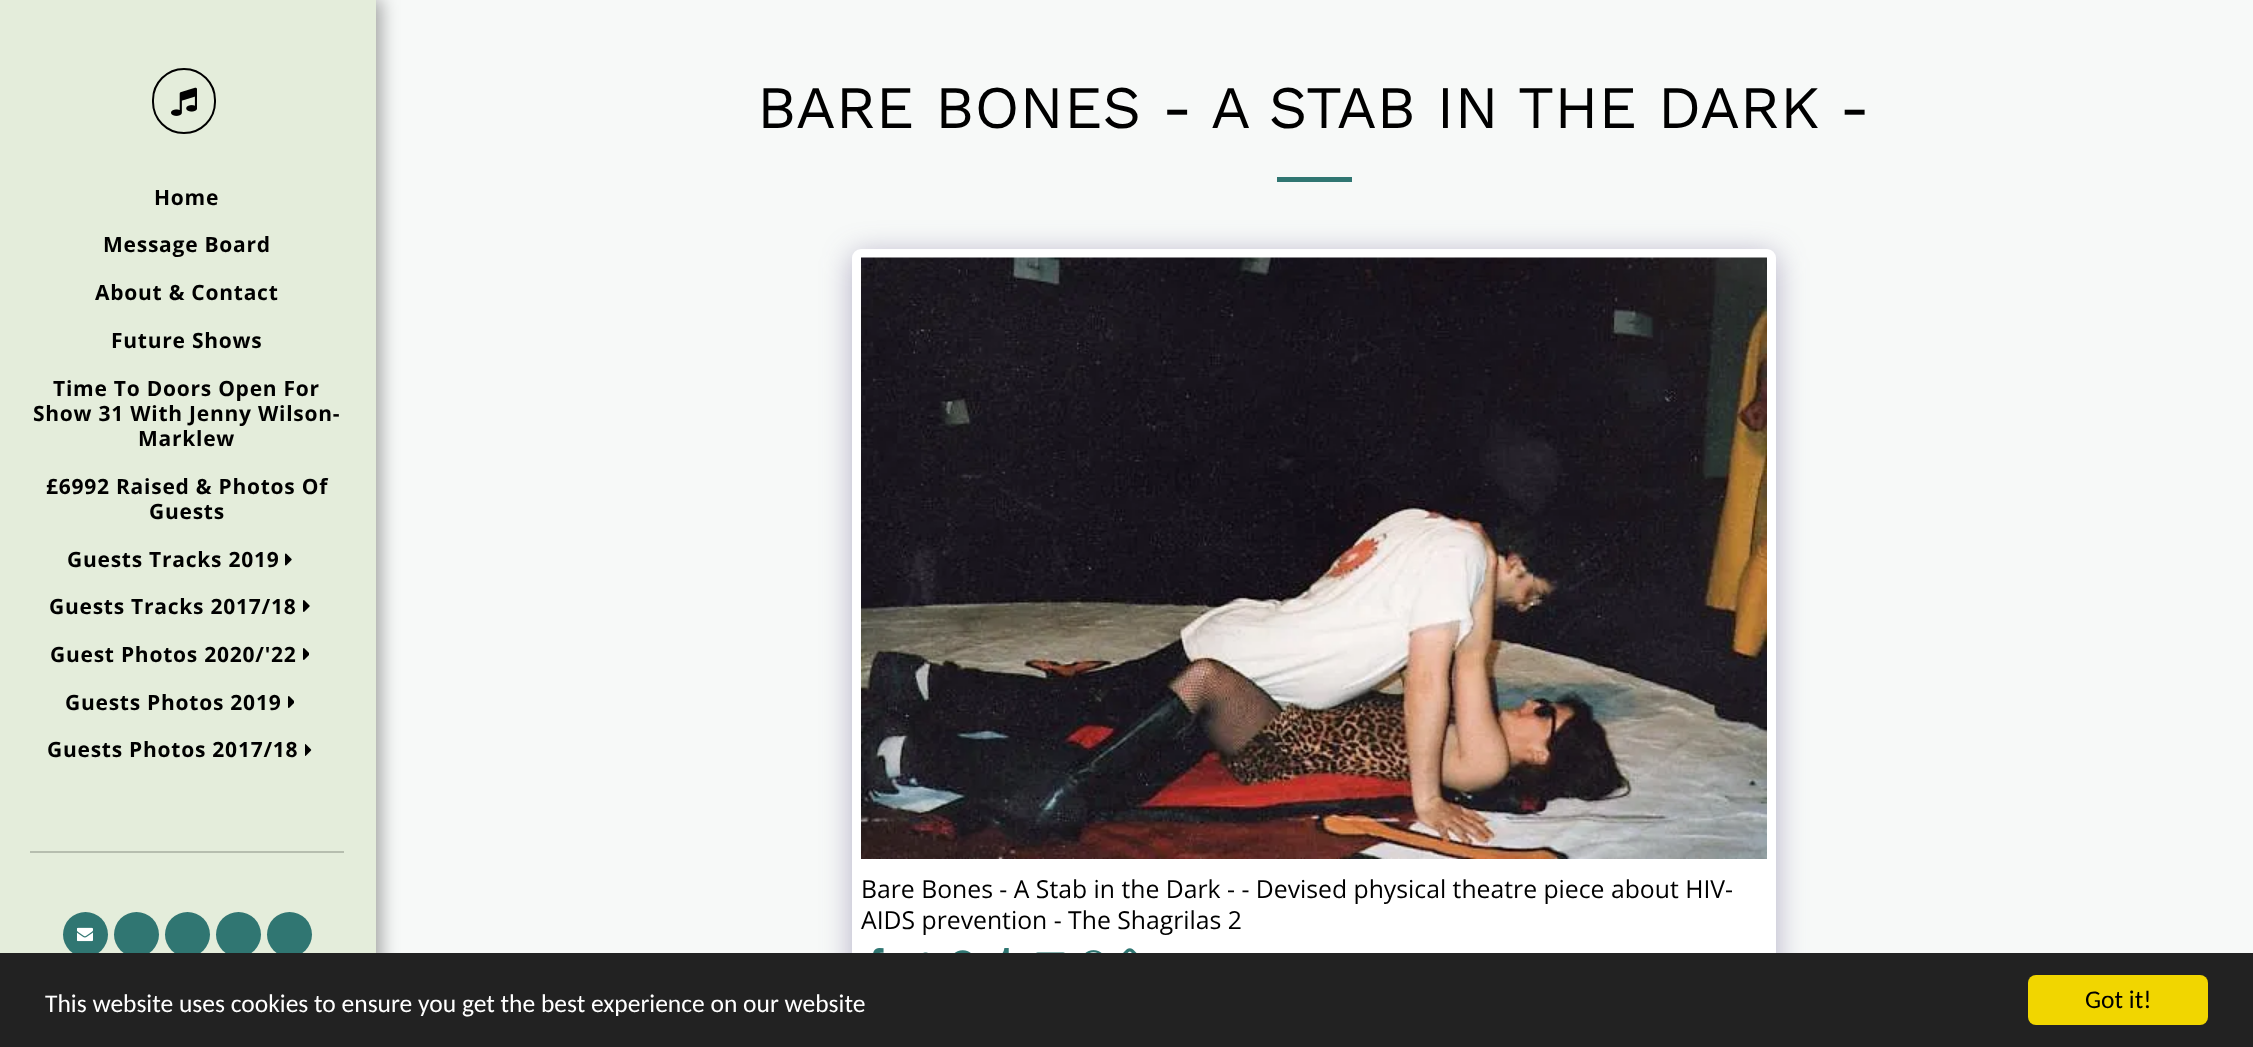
async function draw(canvas) {
  canvas.width = 2253
  canvas.height = 1047
  const ctx = canvas.getContext('2d')
  ctx.miterLimit = 4
  ctx.fontKerning = 'normal'
  async function loadImage(src) {
    const img = new Image()
    img.src = src
    await img.decode()
    return img
  }

  ctx.fillStyle = '#f7f9f8'
  ctx.fillRect(0, 0, 2253, 1047)
  ctx.fillStyle = '#00000059'
  ctx.filter = 'blur(9px)'
  ctx.beginPath()
  ctx.rect(0, -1, 381, 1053)
  ctx.fill()
  ctx.filter = 'none'
  ctx.fillStyle = '#e4eddb'
  ctx.fillRect(0, 0, 376, 953)
  ctx.beginPath()
  ctx.roundRect(153, 69, 62, 64, 31)
  ctx.strokeStyle = '#000'
  ctx.lineWidth = 2
  ctx.stroke()
  ctx.drawImage(await loadImage('image0.png'), 171, 87, 26, 29)
  ctx.letterSpacing = '0.75px'
  ctx.font = 'bold 21px Open Sans'
  ctx.fillStyle = '#000'
  ctx.fillText('Home', 154, 205)
  ctx.fillText('Message Board', 103, 252)
  ctx.fillText('About & Contact', 95, 300)
  ctx.fillText('Future Shows', 111, 348)
  ctx.fillText('Time To Doors Open For', 53, 396)
  ctx.fillText('Show 31 With Jenny Wilson-', 33, 421)
  ctx.fillText('Marklew', 138, 446)
  ctx.fillText('£6992 Raised & Photos Of', 46, 494)
  ctx.fillText('Guests', 149, 519)
  ctx.fillText('Guests Tracks 2019', 67, 567)
  ctx.drawImage(await loadImage('image1.png'), 285, 553, 7, 13)
  ctx.fillText('Guests Tracks 2017/18', 49, 614)
  ctx.drawImage(await loadImage('image2.png'), 303, 600, 7, 12)
  ctx.fillText('Guest Photos 2020/\'22', 50, 662)
  ctx.drawImage(await loadImage('image3.png'), 303, 648, 6, 12)
  ctx.fillText('Guests Photos 2019', 65, 710)
  ctx.drawImage(await loadImage('image3.png'), 288, 696, 6, 12)
  ctx.fillText('Guests Photos 2017/18', 47, 757)
  ctx.drawImage(await loadImage('image4.png'), 305, 744, 7, 12)
  ctx.fillStyle = '#b6beaf'
  ctx.fillRect(30, 851, 314, 2)
  ctx.fillStyle = '#307672'
  ctx.beginPath()
  ctx.arc(85.5, 934.5, 22.5, 0, 2 * Math.PI)
  ctx.fill()
  ctx.drawImage(await loadImage('image5.png'), 77, 927, 16, 15)
  ctx.beginPath()
  ctx.arc(136.5, 934.5, 22.5, 0, 2 * Math.PI)
  ctx.fill()
  ctx.beginPath()
  ctx.arc(187.5, 934.5, 22.5, 0, 2 * Math.PI)
  ctx.fill()
  ctx.beginPath()
  ctx.arc(238.5, 934.5, 22.5, 0, 2 * Math.PI)
  ctx.fill()
  ctx.beginPath()
  ctx.arc(289.5, 934.5, 22.5, 0, 2 * Math.PI)
  ctx.fill()
  ctx.letterSpacing = '0px'
  ctx.font = '60.4px Work Sans'
  ctx.fillStyle = '#000'
  ctx.fillText('BARE BONES - A STAB IN THE DARK -', 757, 128)
  ctx.fillStyle = '#307672'
  ctx.fillRect(1277, 177, 75, 5)
  ctx.fillStyle = '#4d3f7a66'
  ctx.filter = 'blur(15px)'
  ctx.beginPath()
  ctx.roundRect(852, 254, 924, 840, 9)
  ctx.fill()
  ctx.filter = 'none'
  ctx.fillStyle = '#fff'
  ctx.beginPath()
  ctx.roundRect(852, 249, 924, 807, 9)
  ctx.fill()
  ctx.drawImage(await loadImage('image6.png'), 861, 257, 906, 602)
  ctx.font = '24.75px Open Sans'
  ctx.fillStyle = '#000'
  ctx.fillText('Bare Bones - A Stab in the Dark - - Devised physical theatre piece about HIV-', 861, 898)
  ctx.fillText('AIDS prevention - The Shagrilas 2', 861, 929)
  ctx.drawImage(await loadImage('image7.png'), 873, 948, 11, 5)
  ctx.drawImage(await loadImage('image8.png'), 923, 952, 5, 1)
  ctx.drawImage(await loadImage('image9.png'), 954, 950, 17, 3)
  ctx.drawImage(await loadImage('image10.png'), 1002, 948, 7, 5)
  ctx.drawImage(await loadImage('image11.png'), 1036, 952, 29, 1)
  ctx.drawImage(await loadImage('image12.png'), 1085, 950, 17, 3)
  ctx.drawImage(await loadImage('image13.png'), 1123, 948, 14, 5)
  ctx.fillStyle = '#222'
  ctx.fillRect(0, 953, 2253, 94)
  ctx.font = '25.5px Carlito'
  ctx.fillStyle = '#fff'
  ctx.fillText('This website uses cookies to ensure you get the best experience on our website', 45, 1012)
  ctx.fillStyle = '#f1d600'
  ctx.beginPath()
  ctx.roundRect(2028, 975, 180, 50, 8)
  ctx.fill()
  ctx.fillStyle = '#000'
  ctx.fillText('Got it!', 2085, 1008)
}

draw(document.querySelector('canvas'))
